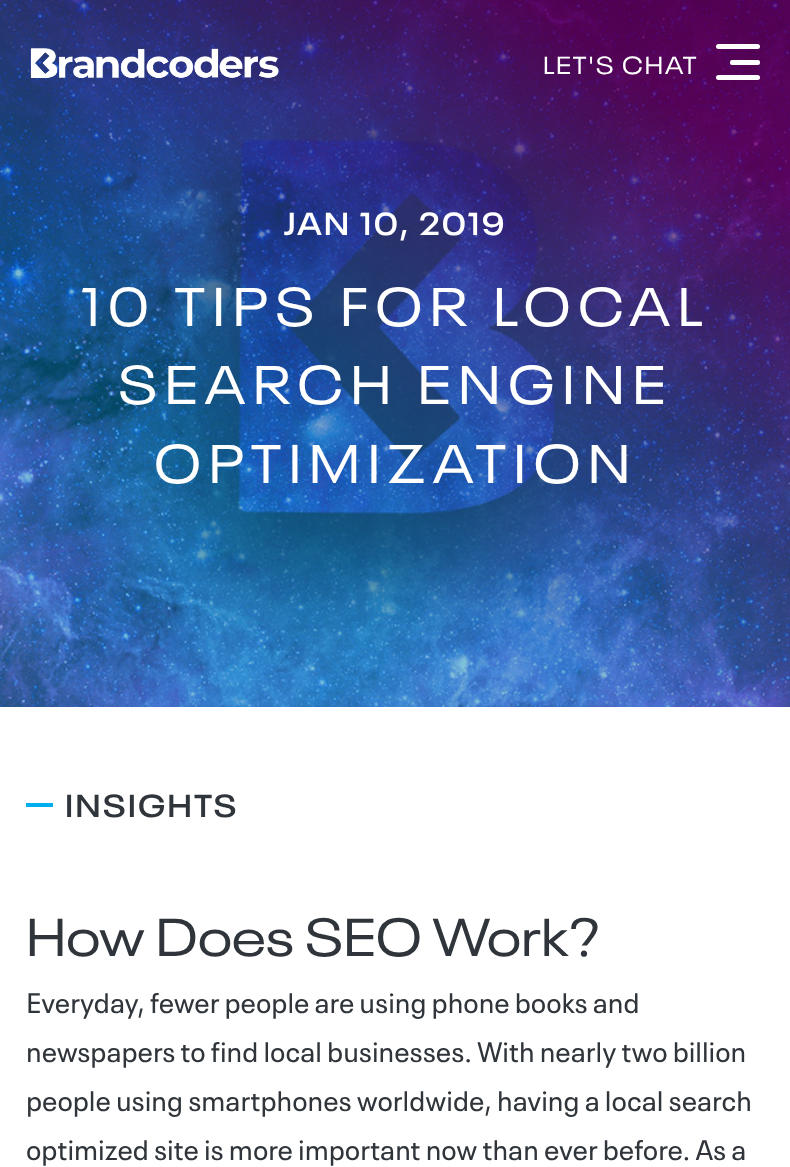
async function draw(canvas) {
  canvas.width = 790
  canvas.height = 1167
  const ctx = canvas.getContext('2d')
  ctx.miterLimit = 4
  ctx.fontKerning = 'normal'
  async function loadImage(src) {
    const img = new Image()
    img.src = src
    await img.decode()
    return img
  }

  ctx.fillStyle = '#fff'
  ctx.fillRect(0, 0, 790, 1167)
  ctx.drawImage(await loadImage('image1.png'), 0, 0, 790, 707)
  ctx.drawImage(await loadImage('image0.png'), 30, 48, 249, 30)
  ctx.letterSpacing = '1.75px'
  ctx.font = '24.5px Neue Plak'
  ctx.fillText('LET\'S CHAT', 543, 74)
  ctx.beginPath()
  ctx.roundRect(716, 44, 44, 5, 2.5)
  ctx.fill()
  ctx.beginPath()
  ctx.roundRect(730, 60, 30, 5, 2)
  ctx.fill()
  ctx.beginPath()
  ctx.roundRect(716, 75, 44, 5, 2.5)
  ctx.fill()
  ctx.letterSpacing = '2.1px'
  ctx.font = '600 31.5px Neue Plak'
  ctx.fillText('JAN 10, 2019', 284, 235)
  ctx.letterSpacing = '7.4px'
  ctx.font = '54px Neue Plak'
  ctx.fillText('10 TIPS FOR LOCAL', 81, 326)
  ctx.fillText('SEARCH ENGINE', 118, 404)
  ctx.fillText('OPTIMIZATION', 154, 483)
  ctx.fillStyle = '#00aeef'
  ctx.fillRect(26, 803, 27, 4)
  ctx.letterSpacing = '2.1px'
  ctx.font = '600 31.5px Neue Plak'
  ctx.fillStyle = '#2f353a'
  ctx.fillText('INSIGHTS', 65, 817)
  ctx.letterSpacing = '0px'
  ctx.font = '52.9px Neue Plak'
  ctx.fillText('How Does SEO Work?', 26, 956)
  ctx.font = '28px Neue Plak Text'
  ctx.fillText('Everyday, fewer people are using phone books and', 26, 1013)
  ctx.fillText('newspapers to find local businesses. With nearly two billion', 26, 1062)
  ctx.fillText('people using smartphones worldwide, having a local search', 26, 1111)
  ctx.fillText('optimized site is more important now than ever before. As a', 26, 1160)
}

draw(document.querySelector('canvas'))
